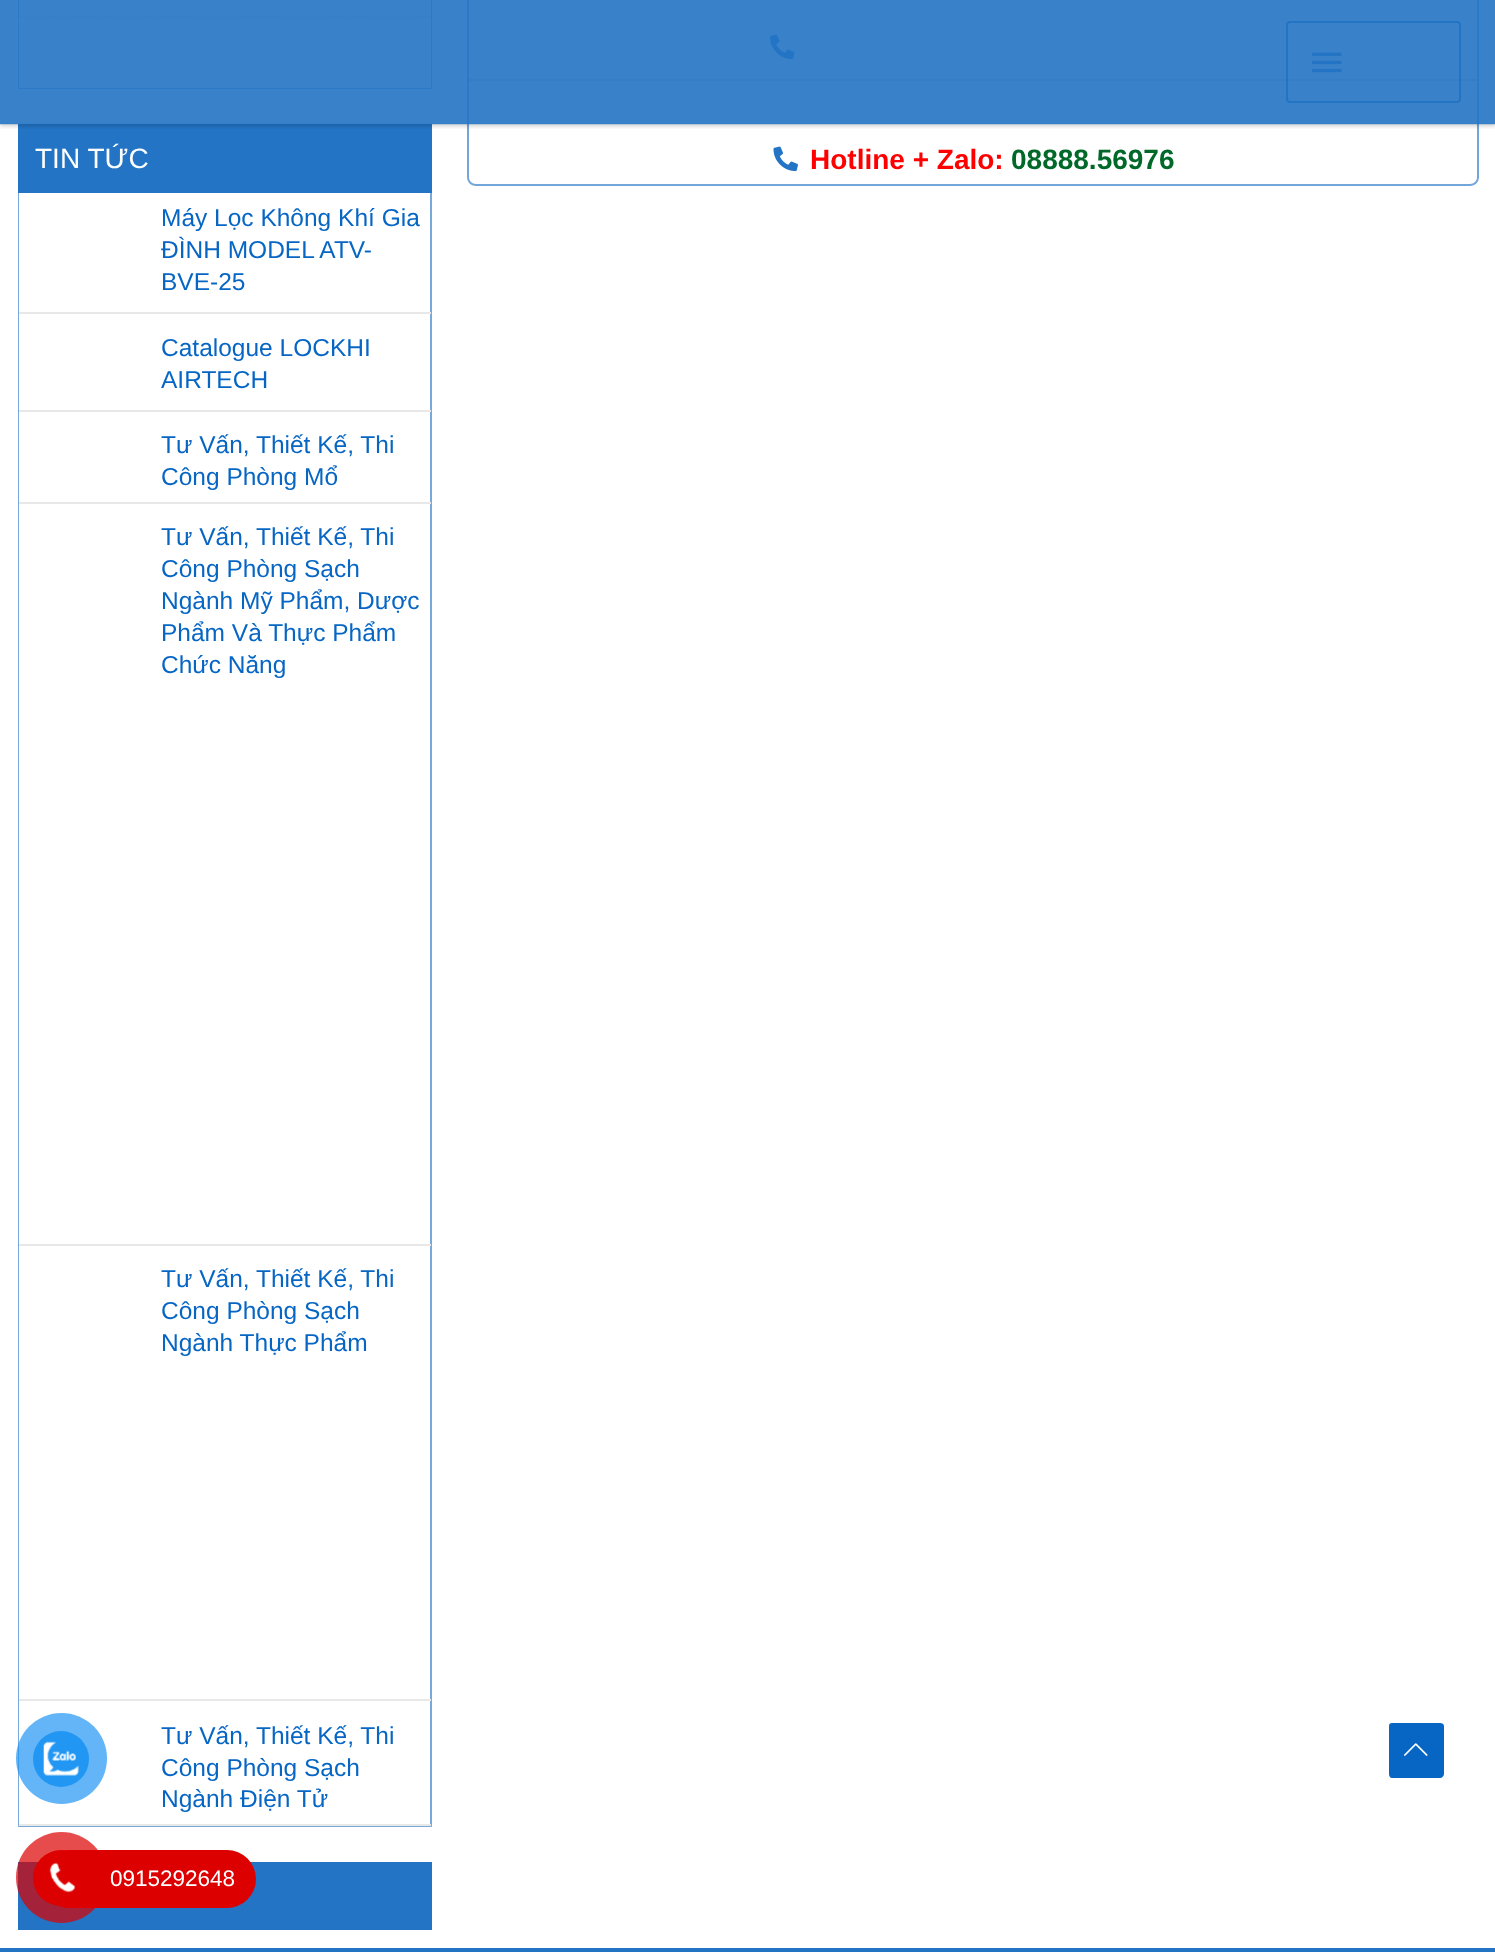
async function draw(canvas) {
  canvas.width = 1495
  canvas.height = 1952
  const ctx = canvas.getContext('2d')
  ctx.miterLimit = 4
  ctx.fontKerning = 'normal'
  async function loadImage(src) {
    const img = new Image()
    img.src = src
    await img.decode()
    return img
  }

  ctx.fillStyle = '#fff'
  ctx.fillRect(0, 0, 1495, 1952)
  ctx.strokeStyle = '#77a9db'
  ctx.lineWidth = 2
  ctx.strokeRect(19, -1, 412, 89)
  ctx.fillRect(19, 0, 412, 88)
  ctx.beginPath()
  ctx.moveTo(19, 16.5)
  ctx.lineTo(430.5, 16.5)
  ctx.strokeStyle = '#e5e5e5'
  ctx.lineWidth = 1.8
  ctx.setLineDash([5.25, 3.57])
  ctx.stroke()
  ctx.fillStyle = '#2374c5'
  ctx.fillRect(18, 124, 414, 69)
  ctx.fillStyle = '#72a6da'
  ctx.beginPath()
  ctx.moveTo(467, -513)
  ctx.lineTo(1479, -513)
  ctx.lineTo(1479, 177)
  ctx.bezierCurveTo(1479, 182, 1475, 186, 1470, 186)
  ctx.lineTo(476, 186)
  ctx.bezierCurveTo(471, 186, 467, 182, 467, 177)
  ctx.closePath()
  ctx.moveTo(469, -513)
  ctx.lineTo(1477, -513)
  ctx.lineTo(1477, 177)
  ctx.bezierCurveTo(1477, 181, 1474, 184, 1470, 184)
  ctx.lineTo(476, 184)
  ctx.bezierCurveTo(472, 184, 469, 181, 469, 177)
  ctx.closePath()
  ctx.fill('evenodd')
  ctx.drawImage(await loadImage('image1.png'), 770, 34, 25, 26)
  ctx.fillStyle = '#d7d7d7'
  ctx.fillRect(469, 79, 1008, 2)
  ctx.save()
  ctx.beginPath()
  ctx.rect(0, 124, 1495, 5)
  ctx.clip()
  ctx.fillStyle = '#00000033'
  ctx.filter = 'blur(2px)'
  ctx.beginPath()
  ctx.rect(0, 2, 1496, 124)
  ctx.fill()
  ctx.filter = 'none'
  ctx.restore()
  ctx.fillStyle = '#2374c4e6'
  ctx.fillRect(0, 0, 1495, 124)
  ctx.fillStyle = '#2374c52e'
  ctx.fillRect(0, 123, 1495, 2)
  ctx.beginPath()
  ctx.roundRect(1287, 22, 173, 80, 3)
  ctx.strokeStyle = '#2374c4'
  ctx.lineWidth = 2
  ctx.setLineDash([])
  ctx.stroke()
  ctx.drawImage(await loadImage('image0.png'), 1312, 52, 30, 21)
  ctx.font = '28px Liberation Sans'
  ctx.fillStyle = '#fff'
  ctx.fillText('TIN TỨC', 35, 168)
  ctx.fillStyle = '#2374c59e'
  ctx.beginPath()
  ctx.moveTo(432, 192)
  ctx.lineTo(432, 1827)
  ctx.lineTo(430, 1825)
  ctx.lineTo(430, 192)
  ctx.closePath()
  ctx.fill()
  ctx.beginPath()
  ctx.moveTo(432, 1827)
  ctx.lineTo(18, 1827)
  ctx.lineTo(19, 1825)
  ctx.lineTo(430, 1825)
  ctx.closePath()
  ctx.fill()
  ctx.beginPath()
  ctx.moveTo(18, 1827)
  ctx.lineTo(18, 192)
  ctx.lineTo(19, 192)
  ctx.lineTo(19, 1825)
  ctx.closePath()
  ctx.fill()
  ctx.fillStyle = '#e8e8e8'
  ctx.fillRect(19, 312, 412, 2)
  ctx.font = '24.5px Liberation Sans'
  ctx.fillStyle = '#0766c4'
  ctx.fillText('Máy Lọc Không Khí Gia', 161, 226)
  ctx.fillText('ĐÌNH MODEL ATV-', 161, 258)
  ctx.fillText('BVE-25', 161, 290)
  ctx.fillStyle = '#e8e8e8'
  ctx.fillRect(19, 410, 412, 2)
  ctx.fillStyle = '#0766c4'
  ctx.fillText('Catalogue LOCKHI', 161, 356)
  ctx.fillText('AIRTECH', 161, 388)
  ctx.fillStyle = '#e8e8e8'
  ctx.fillRect(19, 502, 412, 2)
  ctx.fillStyle = '#0766c4'
  ctx.fillText('Tư Vấn, Thiết Kế, Thi', 161, 453)
  ctx.fillText('Công Phòng Mổ', 161, 485)
  ctx.fillStyle = '#e8e8e8'
  ctx.fillRect(19, 1244, 412, 2)
  ctx.fillStyle = '#0766c4'
  ctx.fillText('Tư Vấn, Thiết Kế, Thi', 161, 545)
  ctx.fillText('Công Phòng Sạch', 161, 577)
  ctx.fillText('Ngành Mỹ Phẩm, Dược', 161, 609)
  ctx.fillText('Phẩm Và Thực Phẩm', 161, 641)
  ctx.fillText('Chức Năng', 161, 673)
  ctx.fillStyle = '#e8e8e8'
  ctx.fillRect(19, 1699, 412, 2)
  ctx.fillStyle = '#0766c4'
  ctx.fillText('Tư Vấn, Thiết Kế, Thi', 161, 1287)
  ctx.fillText('Công Phòng Sạch', 161, 1319)
  ctx.fillText('Ngành Thực Phẩm', 161, 1351)
  ctx.fillStyle = '#e8e8e8'
  ctx.fillRect(19, 1824, 412, 2)
  ctx.fillStyle = '#0766c4'
  ctx.fillText('Tư Vấn, Thiết Kế, Thi', 161, 1744)
  ctx.fillText('Công Phòng Sạch', 161, 1776)
  ctx.fillText('Ngành Điện Tử', 161, 1807)
  ctx.fillStyle = '#2374c5'
  ctx.fillRect(18, 1862, 414, 68)
  ctx.drawImage(await loadImage('image2.png'), 773, 146, 25, 26)
  ctx.font = 'bold 28px Liberation Sans'
  ctx.fillStyle = '#f00'
  ctx.fillText('Hotline + Zalo:', 810, 169)
  ctx.fillStyle = '#006828'
  ctx.fillText('08888.56976', 1011, 169)
  ctx.fillStyle = '#2374c5'
  ctx.fillRect(0, 1948, 1495, 4)
  ctx.fillStyle = '#0766c4'
  ctx.beginPath()
  ctx.moveTo(1440, 1778)
  ctx.lineTo(1392, 1778)
  ctx.bezierCurveTo(1390, 1778, 1389, 1776, 1389, 1774)
  ctx.lineTo(1389, 1726)
  ctx.bezierCurveTo(1389, 1724, 1390, 1723, 1392, 1723)
  ctx.lineTo(1440, 1723)
  ctx.bezierCurveTo(1442, 1723, 1444, 1724, 1444, 1726)
  ctx.lineTo(1444, 1774)
  ctx.bezierCurveTo(1444, 1776, 1442, 1778, 1440, 1778)
  ctx.closePath()
  ctx.fill()
  ctx.drawImage(await loadImage('image3.png'), 1404, 1743, 24, 13)
  ctx.fillStyle = '#2196f3b3'
  ctx.beginPath()
  ctx.arc(61.5, 1758.5, 45.5, 0, 2 * Math.PI)
  ctx.fill()
  ctx.fillStyle = '#2196f3'
  ctx.beginPath()
  ctx.arc(61, 1759, 28, 0, 2 * Math.PI)
  ctx.fill()
  ctx.drawImage(await loadImage('image4.png'), 43, 1741, 36, 35)
  ctx.fillStyle = '#d00'
  ctx.beginPath()
  ctx.roundRect(40, 1850, 216, 58, 29)
  ctx.fill()
  ctx.fillStyle = '#dd0000b3'
  ctx.beginPath()
  ctx.arc(61.5, 1877.5, 45.5, 0, 2 * Math.PI)
  ctx.fill()
  ctx.fillStyle = '#d00'
  ctx.beginPath()
  ctx.arc(61, 1878, 28, 0, 2 * Math.PI)
  ctx.fill()
  ctx.drawImage(await loadImage('image5.png'), 49, 1862, 27, 31)
  ctx.font = '22.5px Liberation Sans'
  ctx.fillStyle = '#fff'
  ctx.fillText('0915292648', 110, 1886)
}

draw(document.querySelector('canvas'))
